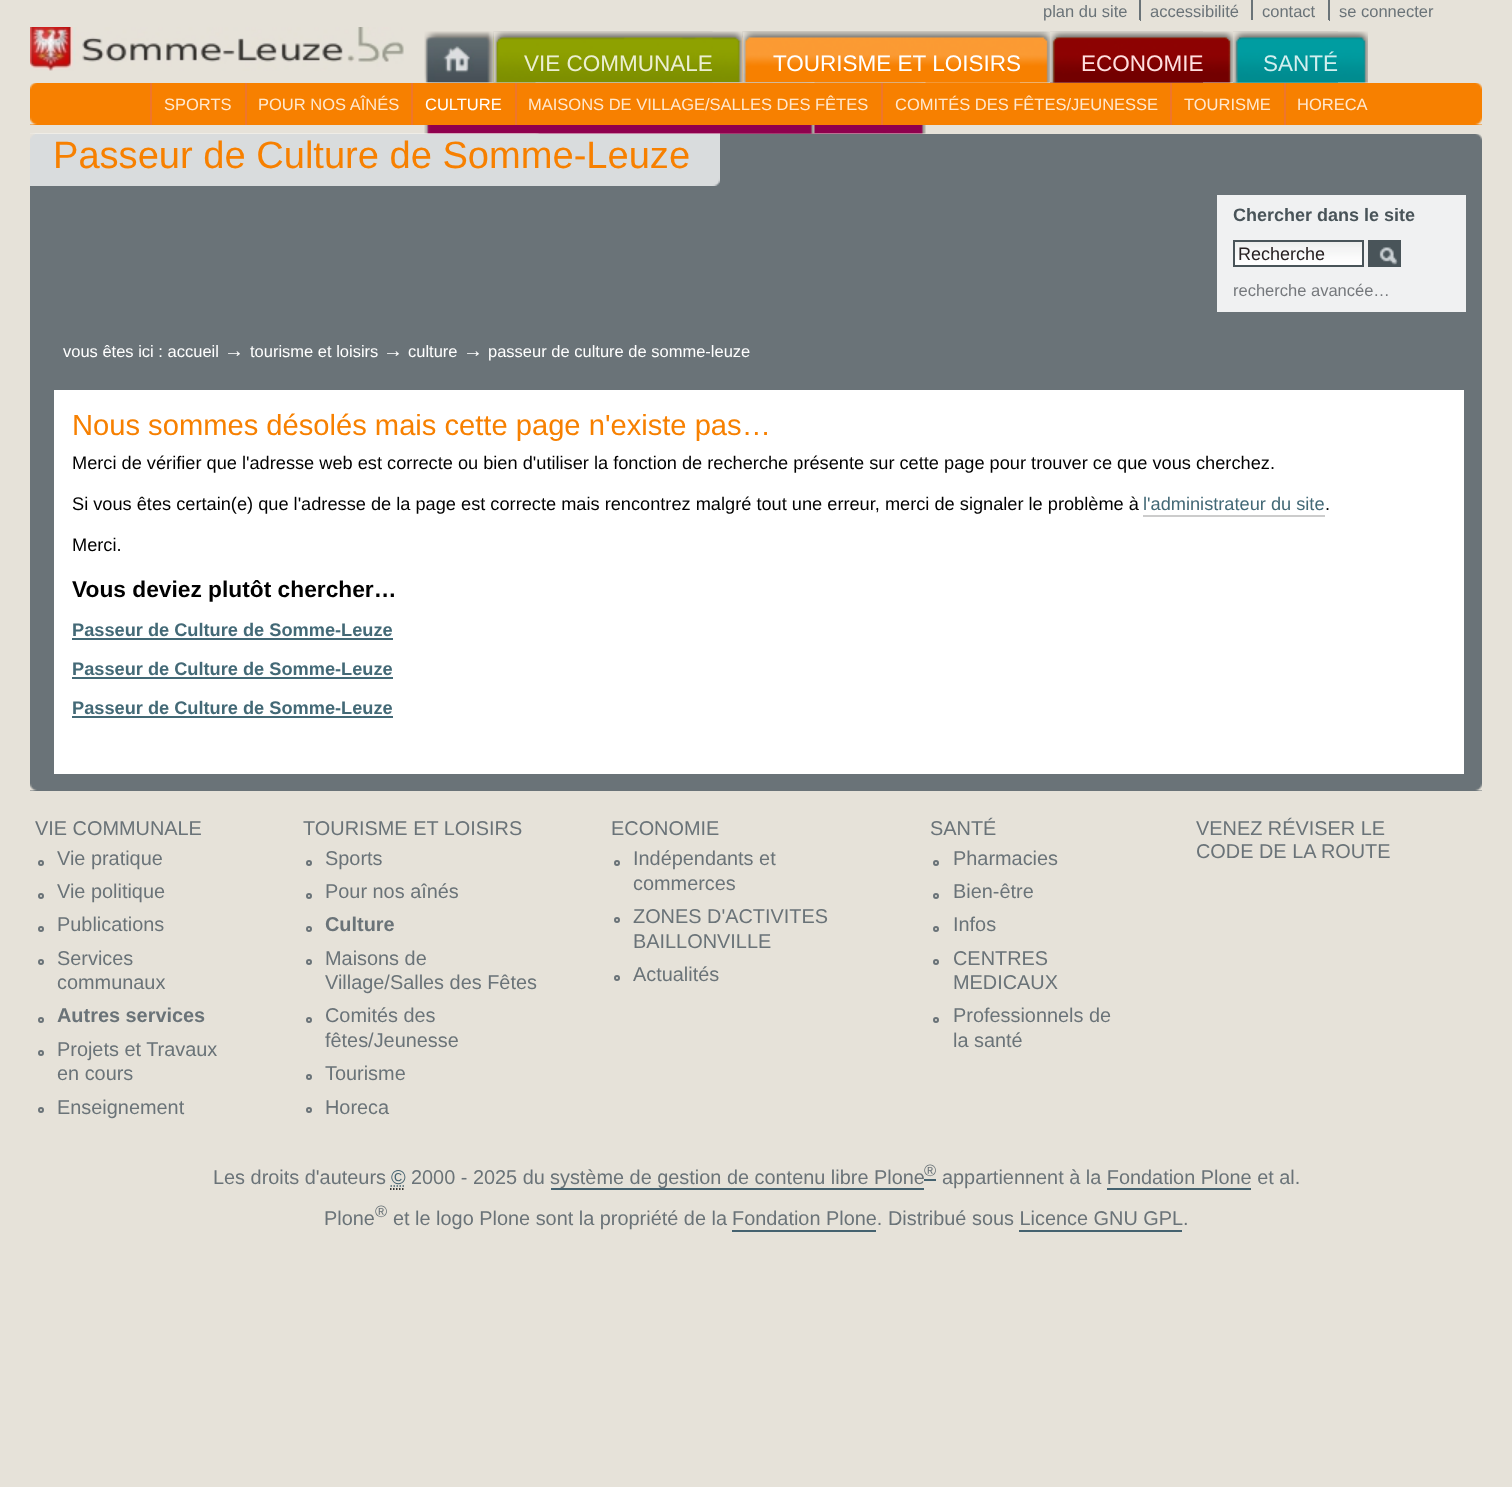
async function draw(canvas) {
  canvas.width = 1512
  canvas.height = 1487
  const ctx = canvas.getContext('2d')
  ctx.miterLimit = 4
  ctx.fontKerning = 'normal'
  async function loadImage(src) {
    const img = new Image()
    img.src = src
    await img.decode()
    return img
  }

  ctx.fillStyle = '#e6e2d9'
  ctx.fillRect(0, 0, 1512, 1487)
  ctx.font = '16.5px Liberation Sans'
  ctx.fillStyle = '#6a7378'
  ctx.fillText('plan du site', 1043, 17)
  ctx.fillRect(1139, 0, 2, 21)
  ctx.fillStyle = '#e6e2d9'
  ctx.fillRect(1139, 20, 1, 1)
  ctx.fillStyle = '#6a7378'
  ctx.fillText('accessibilité', 1150, 17)
  ctx.fillRect(1251, 0, 2, 21)
  ctx.fillStyle = '#e6e2d9'
  ctx.fillRect(1251, 20, 2, 1)
  ctx.fillStyle = '#6a7378'
  ctx.fillText('contact', 1262, 17)
  ctx.fillRect(1328, 0, 2, 21)
  ctx.fillStyle = '#e6e2d9'
  ctx.fillRect(1328, 20, 1, 1)
  ctx.fillStyle = '#6a7378'
  ctx.fillText('se connecter', 1339, 17)
  ctx.drawImage(await loadImage('image0.png'), 30, 27, 374, 44)
  ctx.drawImage(await loadImage('image1.png'), 424, 31, 70, 52)
  ctx.drawImage(await loadImage('image2.png'), 493, 31, 250, 52)
  ctx.drawImage(await loadImage('image3.png'), 493, 31, 220, 52)
  ctx.font = '22.5px Liberation Sans'
  ctx.fillStyle = '#ebefd1'
  ctx.fillText('VIE COMMUNALE', 524, 71)
  ctx.drawImage(await loadImage('image4.png'), 742, 31, 308, 52)
  ctx.drawImage(await loadImage('image5.png'), 742, 31, 278, 52)
  ctx.fillStyle = '#fff'
  ctx.fillText('TOURISME ET LOISIRS', 773, 71)
  ctx.drawImage(await loadImage('image6.png'), 1050, 31, 183, 52)
  ctx.drawImage(await loadImage('image7.png'), 1050, 31, 153, 52)
  ctx.fillStyle = '#ffdfdf'
  ctx.fillText('ECONOMIE', 1081, 71)
  ctx.drawImage(await loadImage('image8.png'), 1233, 31, 135, 52)
  ctx.drawImage(await loadImage('image9.png'), 1233, 31, 105, 52)
  ctx.fillStyle = '#d1efef'
  ctx.fillText('SANTÉ', 1263, 71)
  ctx.drawImage(await loadImage('image10.png'), 535, 82, 391, 52)
  ctx.drawImage(await loadImage('image11.png'), 424, 82, 391, 52)
  ctx.fillStyle = '#f78000'
  ctx.fillRect(30, 83, 1452, 42)
  ctx.drawImage(await loadImage('image12.png'), 1475, 83, 7, 42)
  ctx.drawImage(await loadImage('image13.png'), 30, 83, 7, 42)
  ctx.fillStyle = '#ef752c'
  ctx.fillRect(150, 83, 2, 42)
  ctx.font = '16.5px Liberation Sans'
  ctx.fillStyle = '#ffe8cf'
  ctx.fillText('SPORTS', 164, 110)
  ctx.fillStyle = '#ef752c'
  ctx.fillRect(245, 83, 2, 42)
  ctx.fillStyle = '#ffe8cf'
  ctx.fillText('POUR NOS AÎNÉS', 258, 110)
  ctx.fillStyle = '#ef752c'
  ctx.fillRect(411, 83, 2, 42)
  ctx.fillStyle = '#fff'
  ctx.fillText('CULTURE', 425, 110)
  ctx.fillStyle = '#ef752c'
  ctx.fillRect(515, 83, 2, 42)
  ctx.fillStyle = '#ffe8cf'
  ctx.fillText('MAISONS DE VILLAGE/SALLES DES FÊTES', 528, 110)
  ctx.fillStyle = '#ef752c'
  ctx.fillRect(881, 83, 2, 42)
  ctx.fillStyle = '#ffe8cf'
  ctx.fillText('COMITÉS DES FÊTES/JEUNESSE', 895, 110)
  ctx.fillStyle = '#ef752c'
  ctx.fillRect(1170, 83, 2, 42)
  ctx.fillStyle = '#ffe8cf'
  ctx.fillText('TOURISME', 1184, 110)
  ctx.fillStyle = '#ef752c'
  ctx.fillRect(1284, 83, 2, 42)
  ctx.fillStyle = '#ffe8cf'
  ctx.fillText('HORECA', 1297, 110)
  ctx.fillStyle = '#6a7378'
  ctx.fillRect(30, 134, 1452, 657)
  ctx.drawImage(await loadImage('image16.png'), 30, 133, 690, 53)
  ctx.drawImage(await loadImage('image14.png'), 30, 133, 5, 6)
  ctx.drawImage(await loadImage('image15.png'), 1475, 134, 7, 7)
  ctx.font = '38.1px Liberation Sans'
  ctx.fillStyle = '#f78000'
  ctx.fillText('Passeur de Culture de Somme-Leuze', 53, 168)
  ctx.fillStyle = '#f0f1f2'
  ctx.fillRect(1217, 195, 249, 117)
  ctx.font = 'bold 18px Liberation Sans'
  ctx.fillStyle = '#495459'
  ctx.fillText('Chercher dans le site', 1233, 221)
  ctx.drawImage(await loadImage('image17.png'), 1235, 242, 127, 23)
  ctx.strokeStyle = '#495459'
  ctx.lineWidth = 2
  ctx.strokeRect(1234, 241, 129, 25)
  ctx.font = '18px Liberation Sans'
  ctx.fillStyle = '#272021'
  ctx.fillText('Recherche', 1238, 260)
  ctx.fillStyle = '#495459'
  ctx.fillRect(1368, 240, 33, 27)
  ctx.drawImage(await loadImage('image18.png'), 1379, 247, 19, 18)
  ctx.font = '16.5px Liberation Sans'
  ctx.fillStyle = '#75787c'
  ctx.fillText('recherche avancée…', 1233, 296)
  ctx.fillStyle = '#fff'
  ctx.fillText('vous êtes ici : accueil', 63, 357)
  ctx.font = '19.9px Liberation Sans'
  ctx.fillText('→', 224, 357)
  ctx.font = '16.5px Liberation Sans'
  ctx.fillText('tourisme et loisirs', 250, 357)
  ctx.font = '19.9px Liberation Sans'
  ctx.fillText('→', 383, 357)
  ctx.font = '16.5px Liberation Sans'
  ctx.fillText('culture', 408, 357)
  ctx.font = '19.9px Liberation Sans'
  ctx.fillText('→', 463, 357)
  ctx.font = '16.5px Liberation Sans'
  ctx.fillText('passeur de culture de somme-leuze', 488, 357)
  ctx.drawImage(await loadImage('image19.png'), 30, 783, 7, 8)
  ctx.drawImage(await loadImage('image20.png'), 1475, 783, 7, 8)
  ctx.fillRect(54, 390, 1410, 384)
  ctx.font = '29.15px Liberation Sans'
  ctx.fillStyle = '#f78000'
  ctx.fillText('Nous sommes désolés mais cette page n\'existe pas…', 72, 435)
  ctx.font = '18.22px Liberation Sans'
  ctx.fillStyle = '#000'
  ctx.fillText('Merci de vérifier que l\'adresse web est correcte ou bien d\'utiliser la fonction de recherche présente sur cette page pour trouver ce que vous cherchez.', 72, 469)
  ctx.fillText('Si vous êtes certain(e) que l\'adresse de la page est correcte mais rencontrez malgré tout une erreur, merci de signaler le problème à', 72, 510)
  ctx.fillStyle = '#436976'
  ctx.fillText('l\'administrateur du site', 1143, 510)
  ctx.fillStyle = '#ccc'
  ctx.fillRect(1143, 515, 182, 2)
  ctx.fillStyle = '#000'
  ctx.fillText('.', 1325, 510)
  ctx.fillText('Merci.', 72, 551)
  ctx.font = 'bold 22.75px Liberation Sans'
  ctx.fillText('Vous deviez plutôt chercher…', 72, 597)
  ctx.font = 'bold 18.22px Liberation Sans'
  ctx.fillStyle = '#436976'
  ctx.fillText('Passeur de Culture de Somme-Leuze', 72, 636)
  ctx.fillRect(72, 638, 321, 2)
  ctx.fillText('Passeur de Culture de Somme-Leuze', 72, 675)
  ctx.fillRect(72, 677, 321, 2)
  ctx.fillText('Passeur de Culture de Somme-Leuze', 72, 714)
  ctx.fillRect(72, 716, 321, 2)
  ctx.font = '19.9px Liberation Sans'
  ctx.fillStyle = '#6a7378'
  ctx.fillText('VIE COMMUNALE', 35, 835)
  ctx.beginPath()
  ctx.arc(41, 863, 2, 0, 2 * Math.PI)
  ctx.strokeStyle = '#6a7378'
  ctx.stroke()
  ctx.fillText('Vie pratique', 57, 865)
  ctx.beginPath()
  ctx.arc(41, 896, 2, 0, 2 * Math.PI)
  ctx.stroke()
  ctx.fillText('Vie politique', 57, 898)
  ctx.beginPath()
  ctx.arc(41, 929, 2, 0, 2 * Math.PI)
  ctx.stroke()
  ctx.fillText('Publications', 57, 931)
  ctx.beginPath()
  ctx.arc(41, 962, 2, 0, 2 * Math.PI)
  ctx.stroke()
  ctx.fillText('Services', 57, 965)
  ctx.fillText('communaux', 57, 989)
  ctx.beginPath()
  ctx.arc(41, 1020, 2, 0, 2 * Math.PI)
  ctx.stroke()
  ctx.font = 'bold 19.9px Liberation Sans'
  ctx.fillText('Autres services', 57, 1022)
  ctx.beginPath()
  ctx.arc(41, 1053, 2, 0, 2 * Math.PI)
  ctx.stroke()
  ctx.font = '19.9px Liberation Sans'
  ctx.fillText('Projets et Travaux', 57, 1056)
  ctx.fillText('en cours', 57, 1080)
  ctx.beginPath()
  ctx.arc(41, 1110, 2, 0, 2 * Math.PI)
  ctx.stroke()
  ctx.fillText('Enseignement', 57, 1114)
  ctx.fillText('TOURISME ET LOISIRS', 303, 835)
  ctx.beginPath()
  ctx.arc(309, 863, 2, 0, 2 * Math.PI)
  ctx.stroke()
  ctx.fillText('Sports', 325, 865)
  ctx.beginPath()
  ctx.arc(309, 896, 2, 0, 2 * Math.PI)
  ctx.stroke()
  ctx.fillText('Pour nos aînés', 325, 898)
  ctx.beginPath()
  ctx.arc(309, 929, 2, 0, 2 * Math.PI)
  ctx.stroke()
  ctx.font = 'bold 19.9px Liberation Sans'
  ctx.fillText('Culture', 325, 931)
  ctx.beginPath()
  ctx.arc(309, 962, 2, 0, 2 * Math.PI)
  ctx.stroke()
  ctx.font = '19.9px Liberation Sans'
  ctx.fillText('Maisons de', 325, 965)
  ctx.fillText('Village/Salles des Fêtes', 325, 989)
  ctx.beginPath()
  ctx.arc(309, 1020, 2, 0, 2 * Math.PI)
  ctx.stroke()
  ctx.fillText('Comités des', 325, 1022)
  ctx.fillText('fêtes/Jeunesse', 325, 1047)
  ctx.beginPath()
  ctx.arc(309, 1077, 2, 0, 2 * Math.PI)
  ctx.stroke()
  ctx.fillText('Tourisme', 325, 1080)
  ctx.beginPath()
  ctx.arc(309, 1110, 2, 0, 2 * Math.PI)
  ctx.stroke()
  ctx.fillText('Horeca', 325, 1114)
  ctx.fillText('ECONOMIE', 611, 835)
  ctx.beginPath()
  ctx.arc(617, 863, 2, 0, 2 * Math.PI)
  ctx.stroke()
  ctx.fillText('Indépendants et', 633, 865)
  ctx.fillText('commerces', 633, 890)
  ctx.beginPath()
  ctx.arc(617, 920, 2, 0, 2 * Math.PI)
  ctx.stroke()
  ctx.fillText('ZONES D\'ACTIVITES', 633, 923)
  ctx.fillText('BAILLONVILLE', 633, 948)
  ctx.beginPath()
  ctx.arc(617, 978, 2, 0, 2 * Math.PI)
  ctx.stroke()
  ctx.fillText('Actualités', 633, 981)
  ctx.fillText('SANTÉ', 930, 835)
  ctx.beginPath()
  ctx.arc(936, 863, 2, 0, 2 * Math.PI)
  ctx.stroke()
  ctx.fillText('Pharmacies', 953, 865)
  ctx.beginPath()
  ctx.arc(936, 896, 2, 0, 2 * Math.PI)
  ctx.stroke()
  ctx.fillText('Bien-être', 953, 898)
  ctx.beginPath()
  ctx.arc(936, 929, 2, 0, 2 * Math.PI)
  ctx.stroke()
  ctx.fillText('Infos', 953, 931)
  ctx.beginPath()
  ctx.arc(936, 962, 2, 0, 2 * Math.PI)
  ctx.stroke()
  ctx.fillText('CENTRES', 953, 965)
  ctx.fillText('MEDICAUX', 953, 989)
  ctx.beginPath()
  ctx.arc(936, 1020, 2, 0, 2 * Math.PI)
  ctx.stroke()
  ctx.fillText('Professionnels de', 953, 1022)
  ctx.fillText('la santé', 953, 1047)
  ctx.fillText('VENEZ RÉVISER LE', 1196, 835)
  ctx.fillText('CODE DE LA ROUTE', 1196, 858)
  ctx.fillText('Les droits d\'auteurs', 213, 1184)
  ctx.fillStyle = '#45626f'
  ctx.fillText('©', 391, 1184)
  ctx.beginPath()
  ctx.moveTo(390, 1189)
  ctx.lineTo(405, 1189)
  ctx.strokeStyle = '#000'
  ctx.lineWidth = 1.5
  ctx.setLineDash([1.5, 1.5])
  ctx.stroke()
  ctx.beginPath()
  ctx.moveTo(390.5, 1186)
  ctx.lineTo(405.5, 1186)
  ctx.strokeStyle = '#45626f'
  ctx.stroke()
  ctx.fillStyle = '#6a7378'
  ctx.fillText('2000 - 2025 du', 411, 1184)
  ctx.fillStyle = '#45626f'
  ctx.fillRect(551, 1188, 373, 2)
  ctx.fillStyle = '#6a7378'
  ctx.fillText('système de gestion de contenu libre Plone', 550, 1184)
  ctx.fillStyle = '#45626f'
  ctx.fillRect(924, 1179, 12, 2)
  ctx.font = '16.5px Liberation Sans'
  ctx.fillStyle = '#6a7378'
  ctx.fillText('®', 924, 1176)
  ctx.font = '19.9px Liberation Sans'
  ctx.fillText('appartiennent à la Fondation Plone et al.', 942, 1184)
  ctx.fillStyle = '#45626f'
  ctx.fillRect(1107, 1188, 144, 2)
  ctx.fillStyle = '#6a7378'
  ctx.fillText('Plone', 324, 1225)
  ctx.font = '16.5px Liberation Sans'
  ctx.fillText('®', 375, 1217)
  ctx.font = '19.9px Liberation Sans'
  ctx.fillText('et le logo Plone sont la propriété de la', 393, 1225)
  ctx.fillText('Fondation Plone. Distribué sous Licence GNU GPL.', 732, 1225)
  ctx.fillStyle = '#45626f'
  ctx.fillRect(732, 1230, 144, 2)
  ctx.fillRect(1019, 1230, 163, 2)
}

draw(document.querySelector('canvas'))
